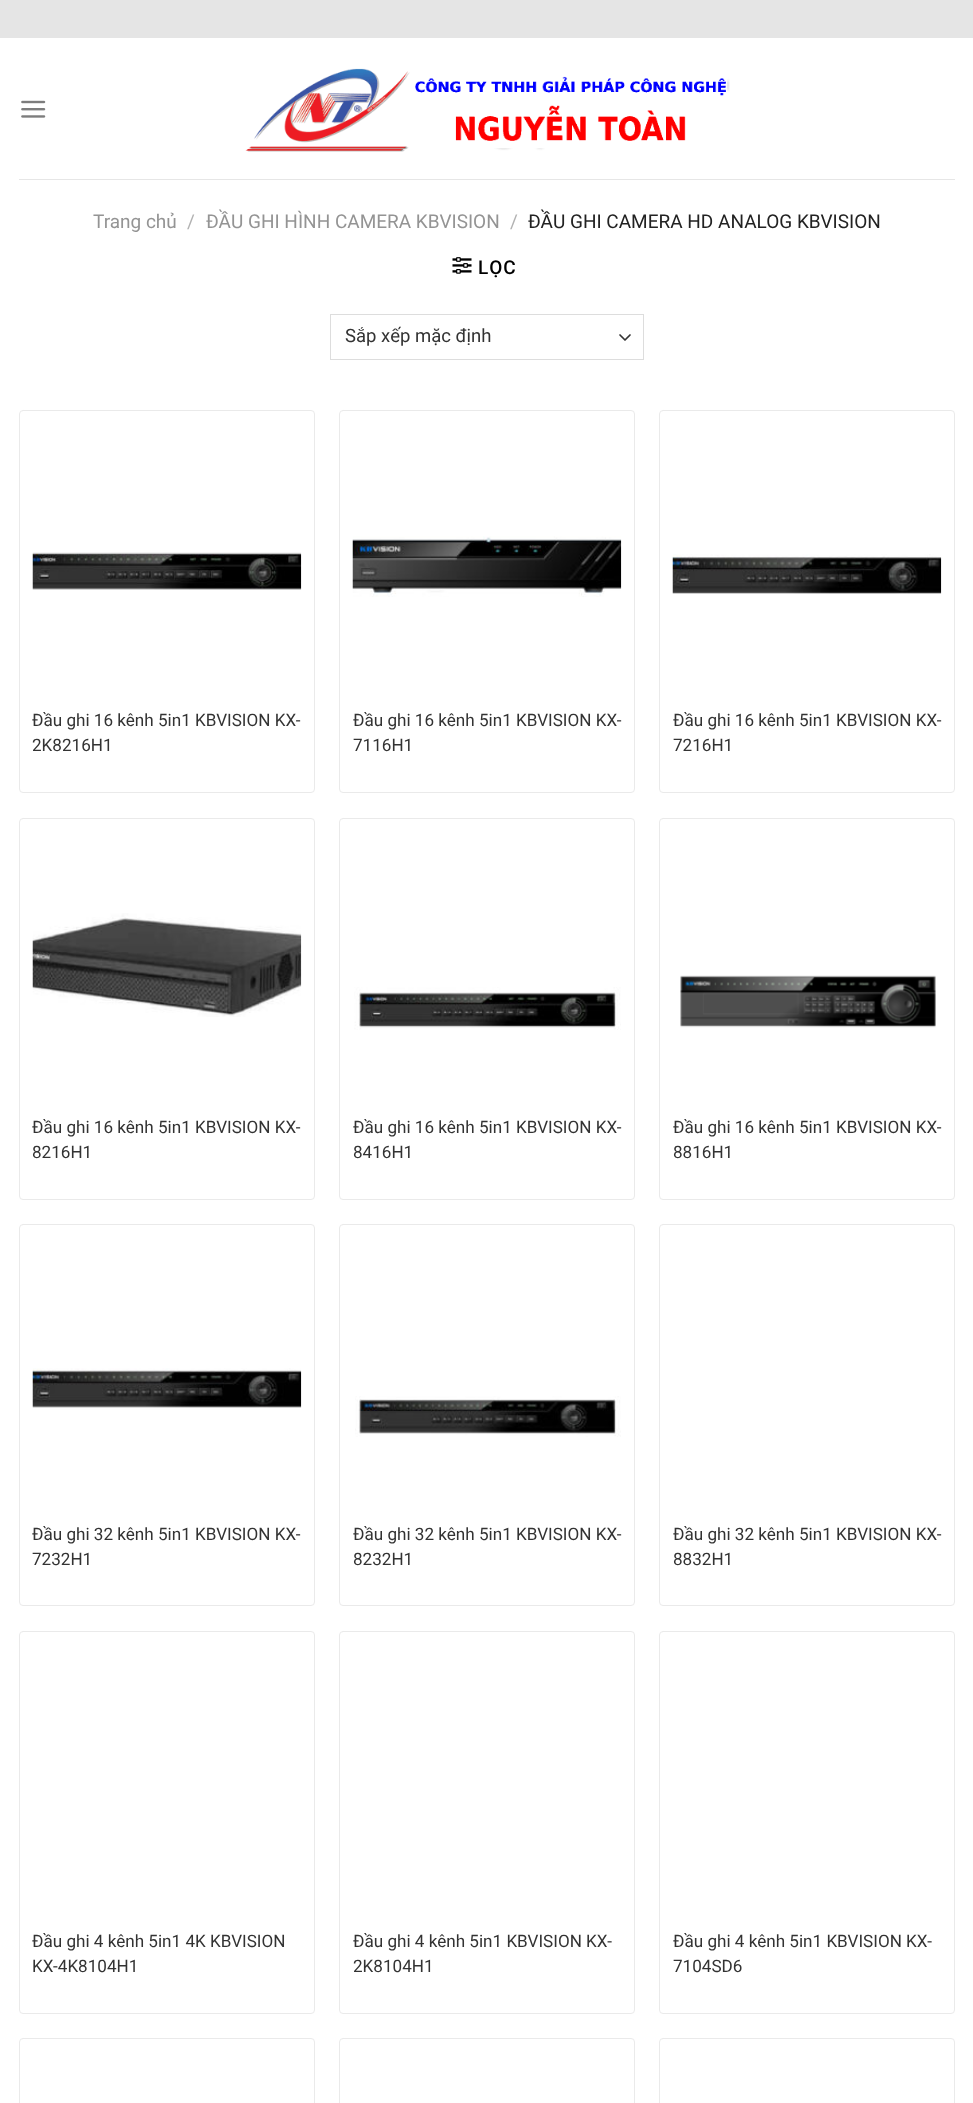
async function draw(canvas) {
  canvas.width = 973
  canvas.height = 2103
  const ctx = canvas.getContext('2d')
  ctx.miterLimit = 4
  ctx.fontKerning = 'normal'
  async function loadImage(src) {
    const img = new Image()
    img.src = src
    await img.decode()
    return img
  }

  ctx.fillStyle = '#fff'
  ctx.fillRect(0, 0, 973, 2103)
  ctx.fillStyle = '#e5e5e5'
  ctx.fillRect(0, 0, 973, 38)
  ctx.drawImage(await loadImage('image0.png'), 21, 100, 25, 18)
  ctx.drawImage(await loadImage('image1.png'), 245, 68, 485, 84)
  ctx.fillStyle = '#e6e6e6'
  ctx.fillRect(19, 179, 936, 1)
  ctx.font = '19px Roboto'
  ctx.fillStyle = '#949494'
  ctx.fillText('Trang chủ', 93, 228)
  ctx.fillStyle = '#b2b2b2'
  ctx.fillText('/', 187, 228)
  ctx.fillStyle = '#949494'
  ctx.fillText('ĐẦU GHI HÌNH CAMERA KBVISION', 206, 228)
  ctx.fillStyle = '#b2b2b2'
  ctx.fillText('/', 510, 228)
  ctx.fillStyle = '#222'
  ctx.fillText('ĐẦU GHI CAMERA HD ANALOG KBVISION', 528, 228)
  ctx.drawImage(await loadImage('image2.png'), 452, 257, 20, 17)
  ctx.letterSpacing = '1px'
  ctx.font = '500 19px Roboto'
  ctx.fillStyle = '#000'
  ctx.fillText('LỌC', 478, 274)
  ctx.beginPath()
  ctx.moveTo(620, 335)
  ctx.lineTo(625, 340)
  ctx.lineTo(630, 335)
  ctx.strokeStyle = '#333'
  ctx.lineWidth = 1.7
  ctx.lineCap = 'round'
  ctx.lineJoin = 'round'
  ctx.stroke()
  ctx.strokeStyle = '#ddd'
  ctx.lineWidth = 1
  ctx.lineJoin = 'miter'
  ctx.strokeRect(330.5, 314.5, 313, 45)
  ctx.letterSpacing = '0px'
  ctx.font = '18.5px Roboto'
  ctx.fillStyle = '#333'
  ctx.fillText('Sắp xếp mặc định', 345, 342)
  ctx.beginPath()
  ctx.roundRect(19.5, 410.5, 295, 382, 3.5)
  ctx.strokeStyle = '#eaeaea'
  ctx.stroke()
  ctx.drawImage(await loadImage('image3.png'), 32, 552, 270, 38)
  ctx.font = '17.1px Roboto'
  ctx.fillText('Đầu ghi 16 kênh 5in1 KBVISION KX-', 32, 726)
  ctx.fillText('2K8216H1', 32, 751)
  ctx.beginPath()
  ctx.roundRect(339.5, 410.5, 295, 382, 3.5)
  ctx.stroke()
  ctx.drawImage(await loadImage('image4.png'), 352, 536, 270, 61)
  ctx.fillText('Đầu ghi 16 kênh 5in1 KBVISION KX-', 353, 726)
  ctx.fillText('7116H1', 353, 751)
  ctx.beginPath()
  ctx.roundRect(659.5, 410.5, 295, 382, 3.5)
  ctx.stroke()
  ctx.drawImage(await loadImage('image5.png'), 672, 554, 270, 40)
  ctx.fillText('Đầu ghi 16 kênh 5in1 KBVISION KX-', 673, 726)
  ctx.fillText('7216H1', 673, 751)
  ctx.beginPath()
  ctx.roundRect(19.5, 818.5, 295, 381, 3.5)
  ctx.stroke()
  ctx.drawImage(await loadImage('image6.png'), 32, 913, 270, 104)
  ctx.fillText('Đầu ghi 16 kênh 5in1 KBVISION KX-', 32, 1133)
  ctx.fillText('8216H1', 32, 1158)
  ctx.beginPath()
  ctx.roundRect(339.5, 818.5, 295, 381, 3.5)
  ctx.stroke()
  ctx.drawImage(await loadImage('image7.png'), 354, 987, 267, 43)
  ctx.fillText('Đầu ghi 16 kênh 5in1 KBVISION KX-', 353, 1133)
  ctx.fillText('8416H1', 353, 1158)
  ctx.beginPath()
  ctx.roundRect(659.5, 818.5, 295, 381, 3.5)
  ctx.stroke()
  ctx.drawImage(await loadImage('image8.png'), 680, 975, 256, 53)
  ctx.fillText('Đầu ghi 16 kênh 5in1 KBVISION KX-', 673, 1133)
  ctx.fillText('8816H1', 673, 1158)
  ctx.beginPath()
  ctx.roundRect(19.5, 1224.5, 295, 381, 3.5)
  ctx.stroke()
  ctx.drawImage(await loadImage('image9.png'), 32, 1368, 270, 40)
  ctx.fillText('Đầu ghi 32 kênh 5in1 KBVISION KX-', 32, 1540)
  ctx.fillText('7232H1', 32, 1565)
  ctx.beginPath()
  ctx.roundRect(339.5, 1224.5, 295, 381, 3.5)
  ctx.stroke()
  ctx.drawImage(await loadImage('image10.png'), 355, 1396, 266, 41)
  ctx.fillText('Đầu ghi 32 kênh 5in1 KBVISION KX-', 353, 1540)
  ctx.fillText('8232H1', 353, 1565)
  ctx.beginPath()
  ctx.roundRect(659.5, 1224.5, 295, 381, 3.5)
  ctx.stroke()
  ctx.fillText('Đầu ghi 32 kênh 5in1 KBVISION KX-', 673, 1540)
  ctx.fillText('8832H1', 673, 1565)
  ctx.beginPath()
  ctx.roundRect(19.5, 1631.5, 295, 382, 3.5)
  ctx.stroke()
  ctx.fillText('Đầu ghi 4 kênh 5in1 4K KBVISION', 32, 1947)
  ctx.fillText('KX-4K8104H1', 32, 1972)
  ctx.beginPath()
  ctx.roundRect(339.5, 1631.5, 295, 382, 3.5)
  ctx.stroke()
  ctx.fillText('Đầu ghi 4 kênh 5in1 KBVISION KX-', 353, 1947)
  ctx.fillText('2K8104H1', 353, 1972)
  ctx.beginPath()
  ctx.roundRect(659.5, 1631.5, 295, 382, 3.5)
  ctx.stroke()
  ctx.fillText('Đầu ghi 4 kênh 5in1 KBVISION KX-', 673, 1947)
  ctx.fillText('7104SD6', 673, 1972)
  ctx.beginPath()
  ctx.roundRect(19.5, 2038.5, 295, 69, 3.5)
  ctx.stroke()
  ctx.beginPath()
  ctx.roundRect(339.5, 2038.5, 295, 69, 3.5)
  ctx.stroke()
  ctx.beginPath()
  ctx.roundRect(659.5, 2038.5, 295, 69, 3.5)
  ctx.stroke()
}

draw(document.querySelector('canvas'))
